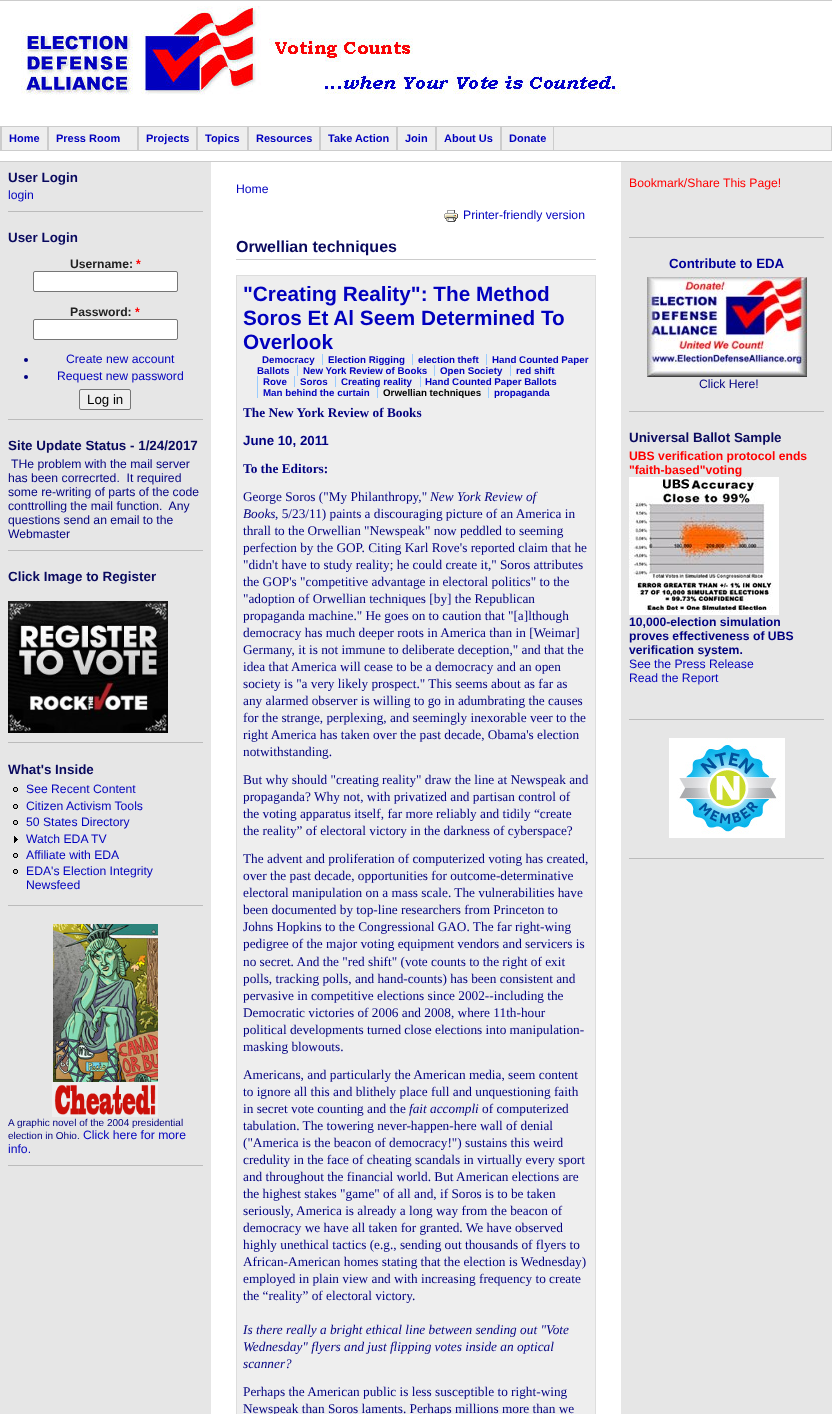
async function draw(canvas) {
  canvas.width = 832
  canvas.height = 1414
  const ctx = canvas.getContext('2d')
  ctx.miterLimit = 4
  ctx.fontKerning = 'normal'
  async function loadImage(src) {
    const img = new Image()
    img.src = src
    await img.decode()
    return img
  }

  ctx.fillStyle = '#fff'
  ctx.fillRect(0, 0, 832, 1414)
  ctx.fillStyle = '#ccc'
  ctx.fillRect(0, 0, 832, 1)
  ctx.drawImage(await loadImage('image0.png'), 21, 6, 600, 89)
  ctx.fillStyle = '#eee'
  ctx.fillRect(2, 127, 829, 23)
  ctx.fillStyle = '#ccc'
  ctx.fillRect(0, 126, 832, 1)
  ctx.fillRect(831, 126, 1, 25)
  ctx.fillRect(0, 150, 832, 1)
  ctx.fillRect(0, 126, 1, 25)
  ctx.fillRect(47, 127, 2, 23)
  ctx.fillRect(1, 127, 1, 23)
  ctx.font = 'bold 11px Liberation Sans'
  ctx.fillStyle = '#0100be'
  ctx.fillText('Home', 9, 142)
  ctx.fillStyle = '#ccc'
  ctx.fillRect(137, 127, 2, 23)
  ctx.fillStyle = '#0100be'
  ctx.fillText('Press Room', 56, 142)
  ctx.fillStyle = '#ccc'
  ctx.fillRect(196, 127, 2, 23)
  ctx.fillStyle = '#0100be'
  ctx.fillText('Projects', 146, 142)
  ctx.fillStyle = '#ccc'
  ctx.fillRect(247, 127, 2, 23)
  ctx.fillStyle = '#0100be'
  ctx.fillText('Topics', 205, 142)
  ctx.fillStyle = '#ccc'
  ctx.fillRect(319, 127, 2, 23)
  ctx.fillStyle = '#0100be'
  ctx.fillText('Resources', 256, 142)
  ctx.fillStyle = '#ccc'
  ctx.fillRect(396, 127, 2, 23)
  ctx.fillStyle = '#0100be'
  ctx.fillText('Take Action', 328, 142)
  ctx.fillStyle = '#ccc'
  ctx.fillRect(435, 127, 2, 23)
  ctx.fillStyle = '#0100be'
  ctx.fillText('Join', 405, 142)
  ctx.fillStyle = '#ccc'
  ctx.fillRect(500, 127, 2, 23)
  ctx.fillStyle = '#0100be'
  ctx.fillText('About Us', 444, 142)
  ctx.fillStyle = '#ccc'
  ctx.fillRect(553, 127, 1, 23)
  ctx.fillStyle = '#0100be'
  ctx.fillText('Donate', 509, 142)
  ctx.fillStyle = '#ccc'
  ctx.fillRect(0, 161, 832, 1)
  ctx.fillStyle = '#e6e6e6'
  ctx.fillRect(0, 162, 211, 1252)
  ctx.fillStyle = '#bbb'
  ctx.fillRect(8, 211, 195, 1)
  ctx.font = 'bold 13.4px Liberation Sans'
  ctx.fillStyle = '#09095e'
  ctx.fillText('User Login', 8, 182)
  ctx.font = '12.2px Liberation Sans'
  ctx.fillStyle = '#0100be'
  ctx.fillText('login', 8, 199)
  ctx.fillStyle = '#bbb'
  ctx.fillRect(8, 419, 195, 1)
  ctx.font = 'bold 13.4px Liberation Sans'
  ctx.fillStyle = '#09095e'
  ctx.fillText('User Login', 8, 242)
  ctx.font = 'bold 12.2px Liberation Sans'
  ctx.fillStyle = '#222'
  ctx.fillText('Username:', 70, 268)
  ctx.fillStyle = '#f00'
  ctx.fillText('*', 136, 268)
  ctx.fillStyle = '#fff'
  ctx.beginPath()
  ctx.roundRect(33.5, 271.5, 144, 20, 1.5)
  ctx.fill()
  ctx.strokeStyle = '#767676'
  ctx.stroke()
  ctx.fillStyle = '#222'
  ctx.fillText('Password:', 70, 316)
  ctx.fillStyle = '#f00'
  ctx.fillText('*', 135, 316)
  ctx.fillStyle = '#fff'
  ctx.beginPath()
  ctx.roundRect(33.5, 319.5, 144, 20, 1.5)
  ctx.fill()
  ctx.stroke()
  ctx.fillStyle = '#000080'
  ctx.beginPath()
  ctx.arc(26, 360, 2, 0, 2 * Math.PI)
  ctx.fill()
  ctx.font = '12.2px Liberation Sans'
  ctx.fillStyle = '#0100be'
  ctx.fillText('Create new account', 66, 363)
  ctx.fillStyle = '#000080'
  ctx.beginPath()
  ctx.arc(26, 377, 2, 0, 2 * Math.PI)
  ctx.fill()
  ctx.fillStyle = '#0100be'
  ctx.fillText('Request new password', 57, 380)
  ctx.fillStyle = '#efefef'
  ctx.beginPath()
  ctx.roundRect(79.5, 389.5, 51, 20, 1.5)
  ctx.fill()
  ctx.stroke()
  ctx.font = '13.3px Liberation Sans'
  ctx.fillStyle = '#000'
  ctx.fillText('Log in', 87, 404)
  ctx.fillStyle = '#bbb'
  ctx.fillRect(8, 550, 195, 1)
  ctx.font = 'bold 13.4px Liberation Sans'
  ctx.fillStyle = '#09095e'
  ctx.fillText('Site Update Status - 1/24/2017', 8, 450)
  ctx.font = '12.2px Liberation Sans'
  ctx.fillStyle = '#000080'
  ctx.fillText('THe problem with the mail server', 11, 468)
  ctx.fillText('has been correcrted.  It required', 8, 482)
  ctx.fillText('some re-writing of parts of the code', 8, 496)
  ctx.fillText('conttrolling the mail function.  Any', 8, 510)
  ctx.fillText('questions send an email to the', 8, 524)
  ctx.fillText('Webmaster', 8, 538)
  ctx.fillStyle = '#bbb'
  ctx.fillRect(8, 742, 195, 1)
  ctx.font = 'bold 13.4px Liberation Sans'
  ctx.fillStyle = '#09095e'
  ctx.fillText('Click Image to Register', 8, 581)
  ctx.drawImage(await loadImage('image1.png'), 8, 601, 160, 132)
  ctx.fillStyle = '#bbb'
  ctx.fillRect(8, 905, 195, 1)
  ctx.fillStyle = '#09095e'
  ctx.fillText('What\'s Inside', 8, 774)
  ctx.drawImage(await loadImage('image2.png'), 13, 787, 5, 5)
  ctx.font = '12.2px Liberation Sans'
  ctx.fillStyle = '#0100be'
  ctx.fillText('See Recent Content', 26, 793)
  ctx.drawImage(await loadImage('image2.png'), 13, 804, 5, 5)
  ctx.fillText('Citizen Activism Tools', 26, 810)
  ctx.drawImage(await loadImage('image2.png'), 13, 820, 5, 5)
  ctx.fillText('50 States Directory', 26, 826)
  ctx.drawImage(await loadImage('image3.png'), 14, 836, 4, 7)
  ctx.fillText('Watch EDA TV', 26, 843)
  ctx.drawImage(await loadImage('image2.png'), 13, 853, 5, 5)
  ctx.fillText('Affiliate with EDA', 26, 859)
  ctx.drawImage(await loadImage('image2.png'), 13, 869, 5, 5)
  ctx.fillText('EDA\'s Election Integrity', 26, 875)
  ctx.fillText('Newsfeed', 26, 889)
  ctx.fillStyle = '#bbb'
  ctx.fillRect(8, 1165, 195, 1)
  ctx.drawImage(await loadImage('image4.png'), 53, 924, 105, 158)
  ctx.drawImage(await loadImage('image5.png'), 52, 1082, 106, 35)
  ctx.font = '10px Liberation Sans'
  ctx.fillStyle = '#000080'
  ctx.fillText('A graphic novel of the 2004 presidential', 8, 1126)
  ctx.fillText('election in Ohio.', 8, 1139)
  ctx.font = '12.2px Liberation Sans'
  ctx.fillStyle = '#0100be'
  ctx.fillText('Click here for more', 83, 1139)
  ctx.fillText('info.', 8, 1153)
  ctx.fillText('Home', 236, 193)
  ctx.drawImage(await loadImage('image6.png'), 444, 210, 14, 12)
  ctx.fillText('Printer-friendly version', 463, 219)
  ctx.fillStyle = '#ccc'
  ctx.fillRect(236, 259, 360, 1)
  ctx.font = 'bold 16px Liberation Sans'
  ctx.fillStyle = '#09095e'
  ctx.fillText('Orwellian techniques', 236, 252)
  ctx.fillStyle = '#eee'
  ctx.fillRect(237, 276, 358, 1138)
  ctx.fillStyle = '#ddd'
  ctx.fillRect(236, 275, 360, 1)
  ctx.fillRect(595, 275, 1, 1139)
  ctx.fillRect(236, 275, 1, 1139)
  ctx.font = 'bold 20.75px Liberation Sans'
  ctx.fillStyle = '#0100be'
  ctx.fillText('"Creating Reality": The Method', 243, 301)
  ctx.fillText('Soros Et Al Seem Determined To', 243, 325)
  ctx.fillText('Overlook', 243, 349)
  ctx.font = 'bold 9.75px Liberation Sans'
  ctx.fillText('Democracy', 262, 363)
  ctx.fillText('Election Rigging', 328, 363)
  ctx.fillStyle = '#9cf'
  ctx.fillRect(322, 354, 1, 11)
  ctx.fillStyle = '#0100be'
  ctx.fillText('election theft', 418, 363)
  ctx.fillStyle = '#9cf'
  ctx.fillRect(412, 354, 1, 11)
  ctx.fillStyle = '#0100be'
  ctx.fillText('Hand Counted Paper', 492, 363)
  ctx.fillStyle = '#9cf'
  ctx.fillRect(486, 354, 1, 11)
  ctx.fillStyle = '#0100be'
  ctx.fillText('Ballots', 257, 374)
  ctx.fillText('New York Review of Books', 303, 374)
  ctx.fillStyle = '#9cf'
  ctx.fillRect(297, 365, 1, 11)
  ctx.fillStyle = '#0100be'
  ctx.fillText('Open Society', 440, 374)
  ctx.fillStyle = '#9cf'
  ctx.fillRect(434, 365, 1, 11)
  ctx.fillStyle = '#0100be'
  ctx.fillText('red shift', 516, 374)
  ctx.fillStyle = '#9cf'
  ctx.fillRect(510, 365, 1, 11)
  ctx.fillStyle = '#0100be'
  ctx.fillText('Rove', 263, 385)
  ctx.fillStyle = '#9cf'
  ctx.fillRect(257, 376, 1, 22)
  ctx.fillStyle = '#0100be'
  ctx.fillText('Soros', 300, 385)
  ctx.fillStyle = '#9cf'
  ctx.fillRect(294, 376, 1, 11)
  ctx.fillStyle = '#0100be'
  ctx.fillText('Creating reality', 341, 385)
  ctx.fillStyle = '#9cf'
  ctx.fillRect(335, 376, 1, 11)
  ctx.fillStyle = '#0100be'
  ctx.fillText('Hand Counted Paper Ballots', 425, 385)
  ctx.fillStyle = '#9cf'
  ctx.fillRect(420, 376, 1, 11)
  ctx.fillStyle = '#0100be'
  ctx.fillText('Man behind the curtain', 263, 396)
  ctx.fillStyle = '#000'
  ctx.fillText('Orwellian techniques', 383, 396)
  ctx.fillStyle = '#9cf'
  ctx.fillRect(377, 387, 1, 11)
  ctx.fillStyle = '#0100be'
  ctx.fillText('propaganda', 494, 396)
  ctx.fillStyle = '#9cf'
  ctx.fillRect(488, 387, 1, 11)
  ctx.font = 'bold 13.3px Liberation Serif'
  ctx.fillStyle = '#000080'
  ctx.fillText('The New York Review of Books', 243, 417)
  ctx.font = 'bold 13.3px Liberation Sans'
  ctx.fillText('June 10, 2011', 243, 445)
  ctx.font = 'bold 13.3px Liberation Serif'
  ctx.fillText('To the Editors:', 243, 473)
  ctx.font = '13.3px Liberation Serif'
  ctx.fillText('George Soros ("My Philanthropy,"', 243, 501)
  ctx.font = 'italic 13.3px Liberation Serif'
  ctx.fillText('New York Review of', 430, 501)
  ctx.fillText('Books', 243, 518)
  ctx.font = '13.3px Liberation Serif'
  ctx.fillText(', 5/23/11) paints a discouraging picture of an America in', 275, 518)
  ctx.fillText('thrall to the Orwellian "Newspeak" now peddled to seeming', 243, 535)
  ctx.fillText('perfection by the GOP. Citing Karl Rove\'s reported claim that he', 243, 552)
  ctx.fillText('"didn\'t have to study reality; he could create it," Soros attributes', 243, 569)
  ctx.fillText('the GOP\'s "competitive advantage in electoral politics" to the', 243, 586)
  ctx.fillText('"adoption of Orwellian techniques [by] the Republican', 243, 603)
  ctx.fillText('propaganda machine." He goes on to caution that "[a]lthough', 243, 620)
  ctx.fillText('democracy has much deeper roots in America than in [Weimar]', 243, 637)
  ctx.fillText('Germany, it is not immune to deliberate deception," and that the', 243, 654)
  ctx.fillText('idea that America will cease to be a democracy and an open', 243, 671)
  ctx.fillText('society is "a very likely prospect." This seems about as far as', 243, 688)
  ctx.fillText('any alarmed observer is willing to go in adumbrating the causes', 243, 705)
  ctx.fillText('for the strange, perplexing, and seemingly inexorable veer to the', 243, 722)
  ctx.fillText('right America has taken over the past decade, Obama\'s election', 243, 739)
  ctx.fillText('notwithstanding.', 243, 756)
  ctx.fillText('But why should "creating reality" draw the line at Newspeak and', 243, 784)
  ctx.fillText('propaganda? Why not, with privatized and partisan control of', 243, 801)
  ctx.fillText('the voting apparatus itself, far more reliably and tidily “create', 243, 818)
  ctx.fillText('the reality” of electoral victory in the darkness of cyberspace?', 243, 835)
  ctx.fillText('The advent and proliferation of computerized voting has created,', 243, 863)
  ctx.fillText('over the past decade, opportunities for outcome-determinative', 243, 880)
  ctx.fillText('electoral manipulation on a mass scale. The vulnerabilities have', 243, 897)
  ctx.fillText('been documented by top-line researchers from Princeton to', 243, 914)
  ctx.fillText('Johns Hopkins to the Congressional GAO. The far right-wing', 243, 931)
  ctx.fillText('pedigree of the major voting equipment vendors and servicers is', 243, 948)
  ctx.fillText('no secret. And the "red shift" (vote counts to the right of exit', 243, 966)
  ctx.fillText('polls, tracking polls, and hand-counts) has been consistent and', 243, 983)
  ctx.fillText('pervasive in competitive elections since 2002--including the', 243, 1000)
  ctx.fillText('Democratic victories of 2006 and 2008, where 11th-hour', 243, 1017)
  ctx.fillText('political developments turned close elections into manipulation-', 243, 1034)
  ctx.fillText('masking blowouts.', 243, 1051)
  ctx.fillText('Americans, and particularly the American media, seem content', 243, 1079)
  ctx.fillText('to ignore all this and blithely place full and unquestioning faith', 243, 1096)
  ctx.fillText('in secret vote counting and the', 243, 1113)
  ctx.font = 'italic 13.3px Liberation Serif'
  ctx.fillText('fait accompli', 409, 1113)
  ctx.font = '13.3px Liberation Serif'
  ctx.fillText('of computerized', 482, 1113)
  ctx.fillText('tabulation. The towering never-happen-here wall of denial', 243, 1130)
  ctx.fillText('("America is the beacon of democracy!") sustains this weird', 243, 1147)
  ctx.fillText('credulity in the face of cheating scandals in virtually every sport', 243, 1164)
  ctx.fillText('and throughout the financial world. But American elections are', 243, 1181)
  ctx.fillText('the highest stakes "game" of all and, if Soros is to be taken', 243, 1198)
  ctx.fillText('seriously, America is already a long way from the beacon of', 243, 1215)
  ctx.fillText('democracy we have all taken for granted. We have observed', 243, 1232)
  ctx.fillText('highly unethical tactics (e.g., sending out thousands of flyers to', 243, 1249)
  ctx.fillText('African-American homes stating that the election is Wednesday)', 243, 1266)
  ctx.fillText('employed in plain view and with increasing frequency to create', 243, 1283)
  ctx.fillText('the “reality” of electoral victory.', 243, 1300)
  ctx.font = 'italic 13.3px Liberation Serif'
  ctx.fillText('Is there really a bright ethical line between sending out "Vote', 243, 1334)
  ctx.fillText('Wednesday" flyers and just flipping votes inside an optical', 243, 1351)
  ctx.fillText('scanner?', 243, 1368)
  ctx.font = '13.3px Liberation Serif'
  ctx.fillText('Perhaps the American public is less susceptible to right-wing', 243, 1396)
  ctx.fillText('Newspeak than Soros laments. Perhaps millions more than we', 243, 1413)
  ctx.fillStyle = '#e6e6e6'
  ctx.fillRect(621, 162, 211, 1252)
  ctx.fillStyle = '#bbb'
  ctx.fillRect(629, 237, 195, 1)
  ctx.font = '12.2px Liberation Sans'
  ctx.fillStyle = '#f00'
  ctx.fillText('Bookmark/Share This Page!', 629, 187)
  ctx.fillStyle = '#bbb'
  ctx.fillRect(629, 411, 195, 1)
  ctx.font = 'bold 13.3px Liberation Sans'
  ctx.fillStyle = '#009'
  ctx.fillText('Contribute to EDA', 669, 268)
  ctx.drawImage(await loadImage('image7.png'), 647, 277, 160, 100)
  ctx.font = '12.2px Liberation Sans'
  ctx.fillStyle = '#000080'
  ctx.fillText('Click Here!', 699, 388)
  ctx.fillStyle = '#bbb'
  ctx.fillRect(629, 719, 195, 1)
  ctx.font = 'bold 13.4px Liberation Sans'
  ctx.fillStyle = '#09095e'
  ctx.fillText('Universal Ballot Sample', 629, 442)
  ctx.font = 'bold 12.2px Liberation Sans'
  ctx.fillStyle = '#f00'
  ctx.fillText('UBS verification protocol ends', 629, 460)
  ctx.fillText('"faith-based"voting', 629, 474)
  ctx.drawImage(await loadImage('image8.png'), 629, 477, 150, 138)
  ctx.fillStyle = '#000080'
  ctx.fillText('10,000-election simulation', 629, 626)
  ctx.fillText('proves effectiveness of UBS', 629, 640)
  ctx.fillText('verification system.', 629, 654)
  ctx.font = '12.2px Liberation Sans'
  ctx.fillStyle = '#0100be'
  ctx.fillText('See the Press Release', 629, 668)
  ctx.fillText('Read the Report', 629, 682)
  ctx.fillStyle = '#bbb'
  ctx.fillRect(629, 858, 195, 1)
  ctx.drawImage(await loadImage('image9.png'), 669, 738, 116, 100)
}

draw(document.querySelector('canvas'))
